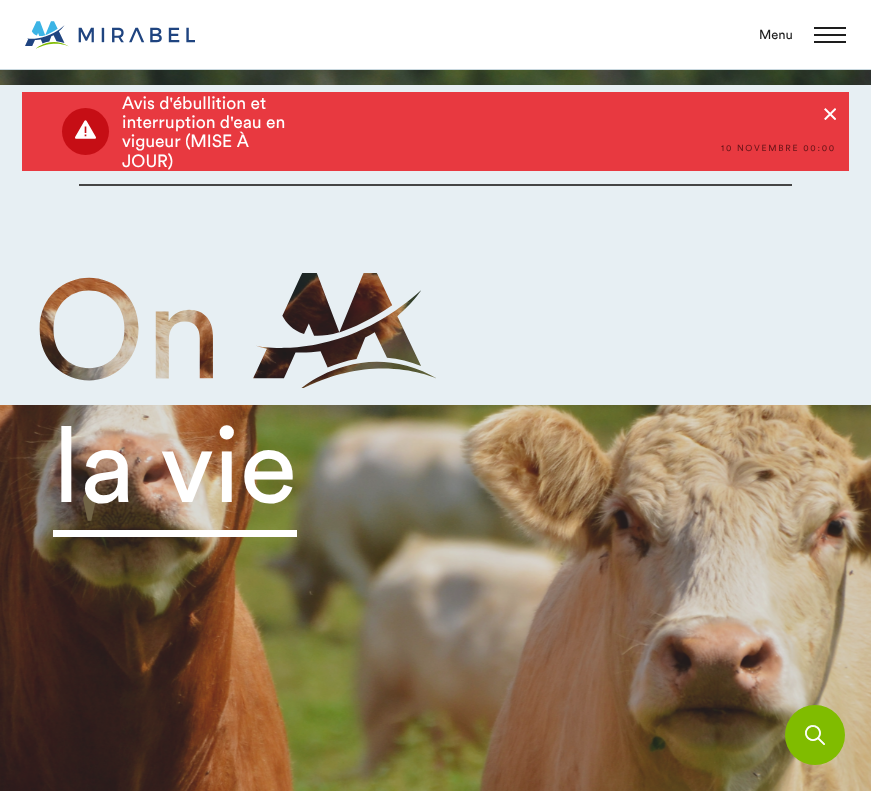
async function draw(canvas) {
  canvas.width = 871
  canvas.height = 791
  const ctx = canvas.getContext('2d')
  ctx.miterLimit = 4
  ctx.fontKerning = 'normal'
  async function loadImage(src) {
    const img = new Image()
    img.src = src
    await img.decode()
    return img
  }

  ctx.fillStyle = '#fff'
  ctx.fillRect(0, 0, 871, 791)
  ctx.fillStyle = '#c8d7de'
  ctx.fillRect(0, 69, 871, 1)
  ctx.drawImage(await loadImage('image0.png'), 25, 21, 170, 28)
  ctx.font = '13px Circular'
  ctx.fillStyle = '#1d1d1d'
  ctx.fillText('Menu', 759, 39)
  ctx.fillRect(814, 34, 32, 2)
  ctx.fillRect(814, 27, 32, 2)
  ctx.fillRect(814, 41, 32, 2)
  ctx.drawImage(await loadImage('image3.png'), 0, 70, 871, 721)
  ctx.fillStyle = '#e7eff3'
  ctx.fillRect(0, 85, 436, 184)
  ctx.fillRect(436, 85, 435, 320)
  ctx.fillStyle = '#e83940'
  ctx.fillRect(22, 92, 827, 79)
  ctx.fillStyle = '#c60e15'
  ctx.beginPath()
  ctx.arc(85.5, 131.5, 23.5, 0, 2 * Math.PI)
  ctx.fill()
  ctx.drawImage(await loadImage('image1.png'), 75, 120, 21, 19)
  ctx.font = '17.5px Circular'
  ctx.fillStyle = '#fff'
  ctx.fillText('Avis d\'ébullition et', 122, 109)
  ctx.fillText('interruption d\'eau en', 122, 128)
  ctx.fillText('vigueur (MISE À', 122, 147)
  ctx.fillText('JOUR)', 122, 167)
  ctx.letterSpacing = '1.75px'
  ctx.font = '8.75px Circular'
  ctx.fillStyle = '#691519'
  ctx.fillText('10 NOVEMBRE 00:00', 721, 151)
  ctx.drawImage(await loadImage('image2.png'), 824, 108, 12, 12)
  ctx.fillStyle = '#454545'
  ctx.fillRect(79, 184, 713, 2)
  ctx.drawImage(await loadImage('image4.png'), 0, 269, 436, 119)
  ctx.fillStyle = '#e7eff3'
  ctx.fillRect(0, 388, 436, 17)
  ctx.letterSpacing = '0px'
  ctx.font = '105px Circular'
  ctx.fillStyle = '#716446'
  ctx.fillText('\'', 79, 562)
  ctx.fillStyle = '#fff'
  ctx.fillText('la vie', 53, 502)
  ctx.fillRect(53, 530, 244, 7)
  ctx.fillStyle = '#80bc00'
  ctx.beginPath()
  ctx.arc(815, 735, 30, 0, 2 * Math.PI)
  ctx.fill()
  ctx.drawImage(await loadImage('image5.png'), 805, 725, 20, 20)
}

draw(document.querySelector('canvas'))
